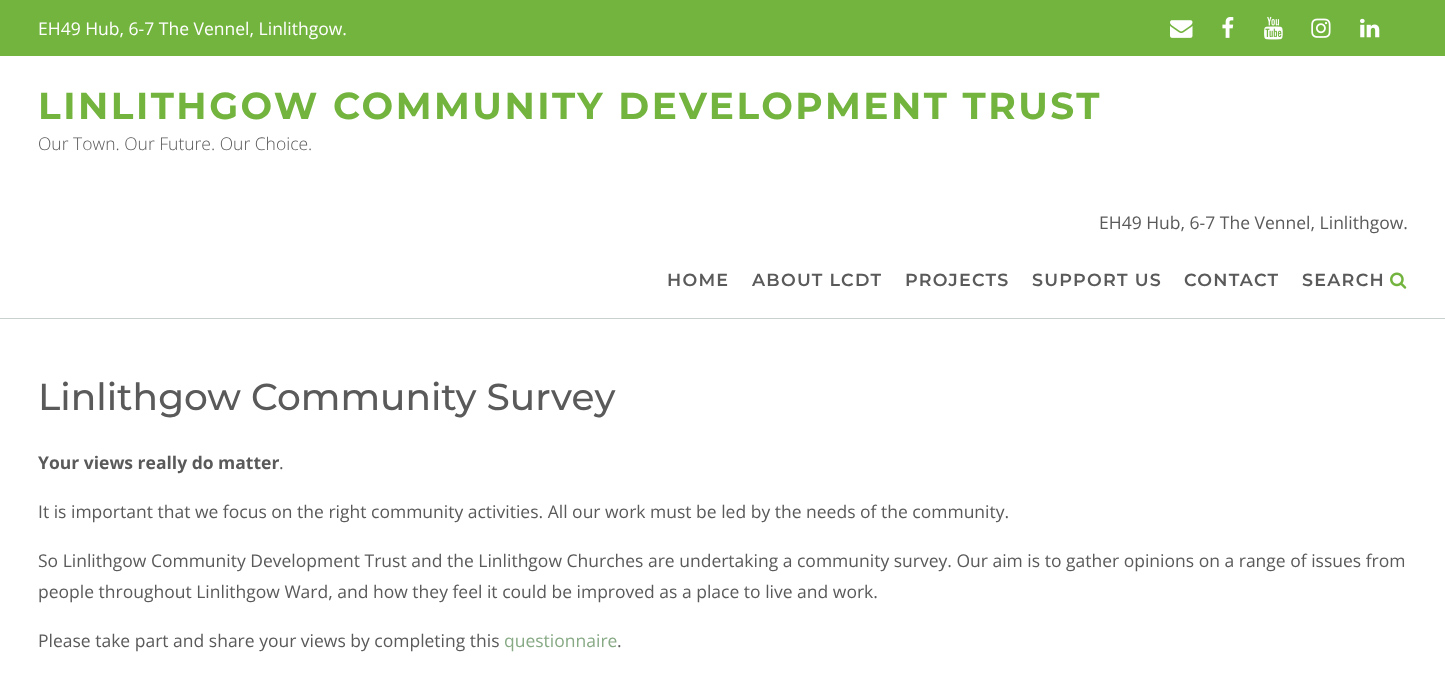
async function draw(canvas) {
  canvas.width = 1445
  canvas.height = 682
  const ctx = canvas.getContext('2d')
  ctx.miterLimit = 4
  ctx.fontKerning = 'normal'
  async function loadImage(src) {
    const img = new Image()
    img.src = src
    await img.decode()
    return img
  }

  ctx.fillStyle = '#fff'
  ctx.fillRect(0, 0, 1445, 682)
  ctx.fillStyle = '#73b43f'
  ctx.fillRect(0, 0, 1445, 56)
  ctx.font = '17.5px Open Sans'
  ctx.fillStyle = '#fff'
  ctx.fillText('EH49 Hub, 6-7 The Vennel, Linlithgow.', 38, 35)
  ctx.drawImage(await loadImage('image0.png'), 1170, 20, 23, 18)
  ctx.drawImage(await loadImage('image1.png'), 1222, 17, 12, 21)
  ctx.drawImage(await loadImage('image2.png'), 1264, 16, 19, 24)
  ctx.drawImage(await loadImage('image3.png'), 1311, 18, 20, 20)
  ctx.drawImage(await loadImage('image4.png'), 1360, 18, 20, 20)
  ctx.fillStyle = '#cacfd0'
  ctx.fillRect(0, 318, 1445, 1)
  ctx.letterSpacing = '2.5px'
  ctx.font = 'bold 37.5px Montserrat'
  ctx.fillStyle = '#73b43f'
  ctx.fillText('LINLITHGOW COMMUNITY DEVELOPMENT TRUST', 38, 119)
  ctx.letterSpacing = '0px'
  ctx.font = '300 17.5px Open Sans'
  ctx.fillStyle = '#5a5a5a'
  ctx.fillText('Our Town. Our Future. Our Choice.', 38, 150)
  ctx.font = '17.5px Open Sans'
  ctx.fillText('EH49 Hub, 6-7 The Vennel, Linlithgow.', 1099, 229)
  ctx.letterSpacing = '1.25px'
  ctx.font = '600 17.5px Montserrat'
  ctx.fillText('HOME', 667, 286)
  ctx.fillText('ABOUT LCDT', 752, 286)
  ctx.fillText('PROJECTS', 905, 286)
  ctx.fillText('SUPPORT US', 1032, 286)
  ctx.fillText('CONTACT', 1184, 286)
  ctx.fillText('SEARCH', 1302, 286)
  ctx.drawImage(await loadImage('image5.png'), 1390, 272, 17, 17)
  ctx.letterSpacing = '0px'
  ctx.font = '500 37.5px Montserrat'
  ctx.fillText('Linlithgow Community Survey', 38, 410)
  ctx.font = 'bold 17.5px Open Sans'
  ctx.fillText('Your views really do matter', 38, 469)
  ctx.font = '17.5px Open Sans'
  ctx.fillText('.', 279, 469)
  ctx.fillText('It is important that we focus on the right community activities. All our work must be led by the needs of the community.', 38, 518)
  ctx.fillText('So Linlithgow Community Development Trust and the Linlithgow Churches are undertaking a community survey. Our aim is to gather opinions on a range of issues from', 38, 567)
  ctx.fillText('people throughout Linlithgow Ward, and how they feel it could be improved as a place to live and work.', 38, 598)
  ctx.fillText('Please take part and share your views by completing this', 38, 647)
  ctx.fillStyle = '#87aa85'
  ctx.fillText('questionnaire', 504, 647)
  ctx.fillStyle = '#5a5a5a'
  ctx.fillText('.', 617, 647)
}

draw(document.querySelector('canvas'))
